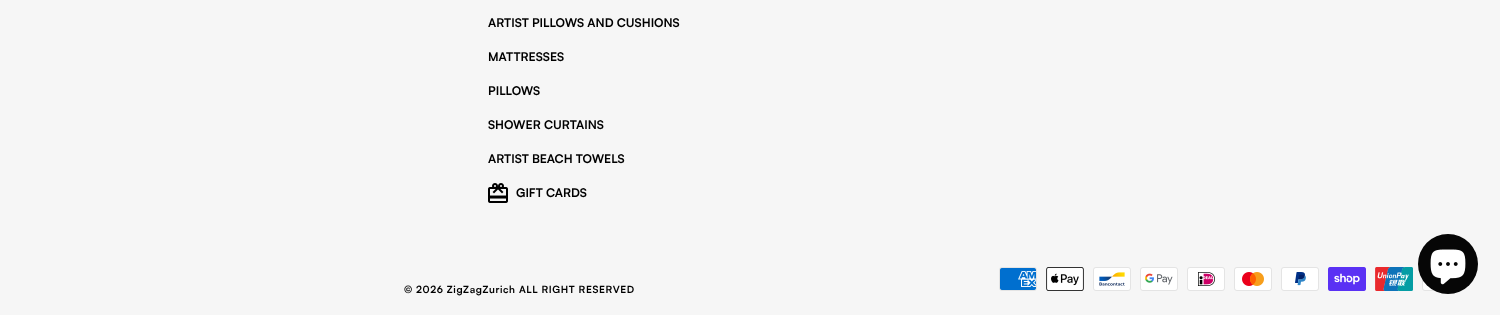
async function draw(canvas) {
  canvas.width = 1500
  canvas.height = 315
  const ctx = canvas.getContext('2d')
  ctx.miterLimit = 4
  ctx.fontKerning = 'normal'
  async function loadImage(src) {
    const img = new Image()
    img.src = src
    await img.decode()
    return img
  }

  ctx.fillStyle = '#f6f6f6'
  ctx.fillRect(0, 0, 1500, 315)
  ctx.font = 'bold 12px Satoshi'
  ctx.fillStyle = '#000'
  ctx.fillText('ARTIST PILLOWS AND CUSHIONS', 488, 27)
  ctx.fillText('MATTRESSES', 488, 61)
  ctx.fillText('PILLOWS', 488, 95)
  ctx.fillText('SHOWER CURTAINS', 488, 129)
  ctx.fillText('ARTIST BEACH TOWELS', 488, 163)
  ctx.drawImage(await loadImage('image0.png'), 488, 183, 20, 20)
  ctx.fillText('GIFT CARDS', 516, 197)
  ctx.letterSpacing = '0.6px'
  ctx.font = 'bold 10px Satoshi'
  ctx.fillText('© 2026 ZigZagZurich ALL RIGHT RESERVED', 404, 293)
  ctx.drawImage(await loadImage('image1.png'), 999, 267, 38, 24)
  ctx.drawImage(await loadImage('image2.png'), 1046, 267, 38, 24)
  ctx.drawImage(await loadImage('image3.png'), 1093, 267, 38, 24)
  ctx.drawImage(await loadImage('image4.png'), 1140, 267, 38, 24)
  ctx.drawImage(await loadImage('image5.png'), 1187, 267, 38, 24)
  ctx.drawImage(await loadImage('image6.png'), 1234, 267, 38, 24)
  ctx.drawImage(await loadImage('image7.png'), 1281, 267, 38, 24)
  ctx.drawImage(await loadImage('image8.png'), 1328, 267, 38, 24)
  ctx.drawImage(await loadImage('image9.png'), 1375, 267, 38, 24)
  ctx.drawImage(await loadImage('image10.png'), 1422, 279, 13, 12)
  ctx.fillStyle = '#060606'
  ctx.beginPath()
  ctx.arc(1448, 264, 30, 0, 2 * Math.PI)
  ctx.fill()
  ctx.drawImage(await loadImage('image11.png'), 1430, 249, 36, 36)
}

draw(document.querySelector('canvas'))
